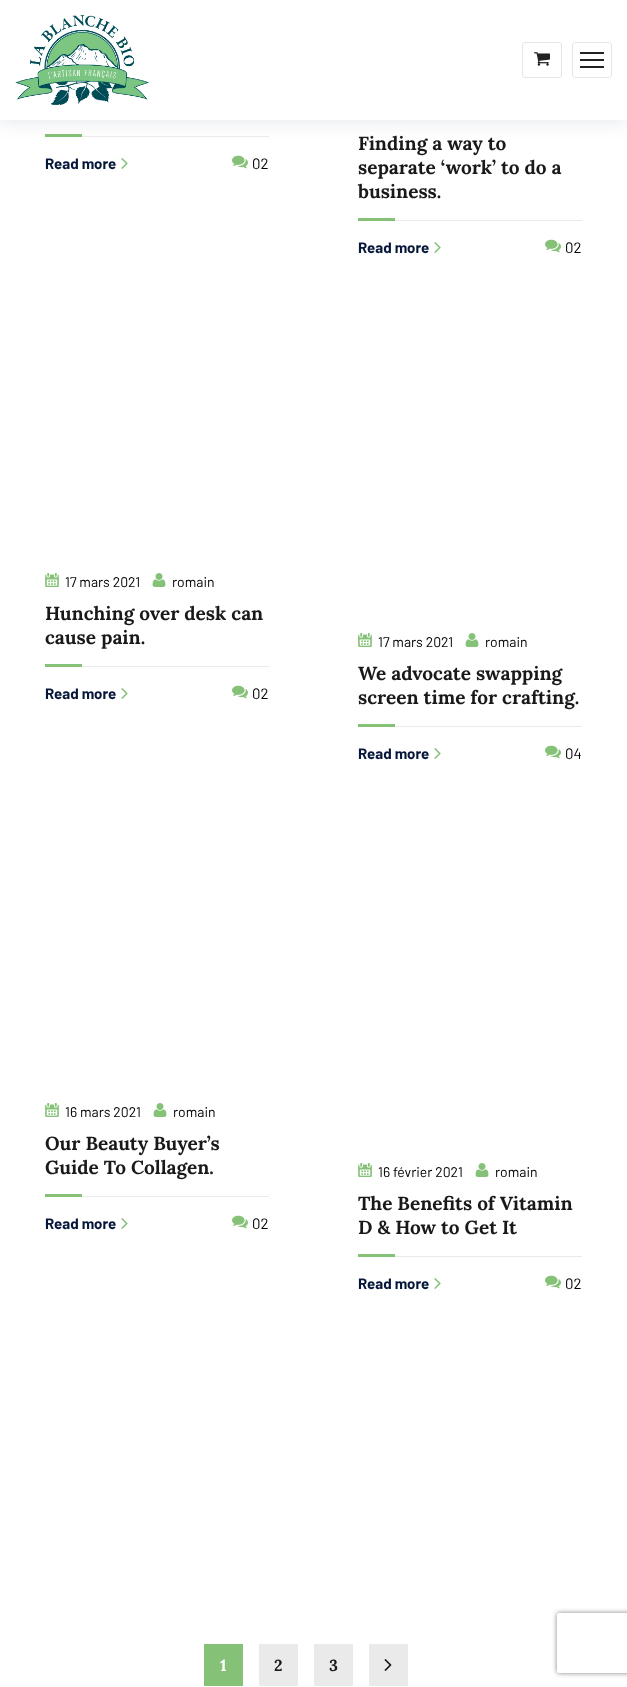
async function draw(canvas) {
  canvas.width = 627
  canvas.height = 1687
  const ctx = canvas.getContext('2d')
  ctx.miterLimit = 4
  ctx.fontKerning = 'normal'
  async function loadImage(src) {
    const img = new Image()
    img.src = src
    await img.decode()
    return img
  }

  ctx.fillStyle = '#fff'
  ctx.fillRect(0, 0, 627, 1687)
  ctx.fillStyle = '#eaeaea'
  ctx.fillRect(82, 136, 187, 1)
  ctx.fillStyle = '#85c177'
  ctx.fillRect(45, 134, 37, 3)
  ctx.fillStyle = '#02154e17'
  ctx.filter = 'blur(9px)'
  ctx.beginPath()
  ctx.rect(0, 3, 627, 120)
  ctx.fill()
  ctx.filter = 'none'
  ctx.fillStyle = '#fff'
  ctx.fillRect(0, 0, 627, 120)
  ctx.drawImage(await loadImage('image0.png'), 15, 15, 134, 90)
  ctx.beginPath()
  ctx.roundRect(522.5, 42.5, 39, 35, 2.5)
  ctx.strokeStyle = '#e6e6e6'
  ctx.stroke()
  ctx.drawImage(await loadImage('image1.png'), 534, 52, 16, 14)
  ctx.beginPath()
  ctx.roundRect(572.5, 42.5, 39, 35, 2.5)
  ctx.stroke()
  ctx.fillStyle = '#222'
  ctx.fillRect(580, 52, 24, 2)
  ctx.fillRect(580, 59, 24, 2)
  ctx.fillRect(580, 66, 24, 2)
  ctx.font = 'bold 15px Barlow'
  ctx.fillStyle = '#07173a'
  ctx.fillText('Read more', 45, 169)
  ctx.drawImage(await loadImage('image2.png'), 121, 158, 7, 11)
  ctx.drawImage(await loadImage('image3.png'), 232, 155, 16, 14)
  ctx.font = '15px Barlow'
  ctx.fillStyle = '#000'
  ctx.fillText('02', 252, 169)
  ctx.fillStyle = '#eaeaea'
  ctx.fillRect(395, 220, 187, 1)
  ctx.font = 'bold 19px Lora'
  ctx.fillStyle = '#191919'
  ctx.fillText('Finding a way to', 358, 150)
  ctx.fillText('separate ‘work’ to do a', 358, 174)
  ctx.fillText('business.', 358, 198)
  ctx.fillStyle = '#85c177'
  ctx.fillRect(358, 218, 37, 3)
  ctx.font = 'bold 15px Barlow'
  ctx.fillStyle = '#07173a'
  ctx.fillText('Read more', 358, 253)
  ctx.drawImage(await loadImage('image2.png'), 434, 242, 7, 11)
  ctx.drawImage(await loadImage('image3.png'), 545, 239, 16, 14)
  ctx.font = '15px Barlow'
  ctx.fillStyle = '#000'
  ctx.fillText('02', 565, 253)
  ctx.drawImage(await loadImage('image4.png'), 45, 573, 14, 14)
  ctx.font = '14px Barlow'
  ctx.fillText('17 mars 2021', 65, 587)
  ctx.drawImage(await loadImage('image5.png'), 152, 573, 14, 14)
  ctx.fillText('romain', 172, 587)
  ctx.fillStyle = '#eaeaea'
  ctx.fillRect(82, 666, 187, 1)
  ctx.font = 'bold 19px Lora'
  ctx.fillStyle = '#191919'
  ctx.fillText('Hunching over desk can', 45, 620)
  ctx.fillText('cause pain.', 45, 644)
  ctx.fillStyle = '#85c177'
  ctx.fillRect(45, 664, 37, 3)
  ctx.font = 'bold 15px Barlow'
  ctx.fillStyle = '#07173a'
  ctx.fillText('Read more', 45, 699)
  ctx.drawImage(await loadImage('image2.png'), 121, 688, 7, 11)
  ctx.drawImage(await loadImage('image3.png'), 232, 685, 16, 14)
  ctx.font = '15px Barlow'
  ctx.fillStyle = '#000'
  ctx.fillText('02', 252, 699)
  ctx.drawImage(await loadImage('image4.png'), 358, 633, 14, 14)
  ctx.font = '14px Barlow'
  ctx.fillText('17 mars 2021', 378, 647)
  ctx.drawImage(await loadImage('image5.png'), 465, 633, 14, 14)
  ctx.fillText('romain', 485, 647)
  ctx.fillStyle = '#eaeaea'
  ctx.fillRect(395, 726, 187, 1)
  ctx.font = 'bold 19px Lora'
  ctx.fillStyle = '#191919'
  ctx.fillText('We advocate swapping', 358, 680)
  ctx.fillText('screen time for crafting.', 358, 704)
  ctx.fillStyle = '#85c177'
  ctx.fillRect(358, 724, 37, 3)
  ctx.font = 'bold 15px Barlow'
  ctx.fillStyle = '#07173a'
  ctx.fillText('Read more', 358, 759)
  ctx.drawImage(await loadImage('image2.png'), 434, 748, 7, 11)
  ctx.drawImage(await loadImage('image3.png'), 545, 745, 16, 14)
  ctx.font = '15px Barlow'
  ctx.fillStyle = '#000'
  ctx.fillText('04', 565, 759)
  ctx.drawImage(await loadImage('image4.png'), 45, 1103, 14, 14)
  ctx.font = '14px Barlow'
  ctx.fillText('16 mars 2021', 65, 1117)
  ctx.drawImage(await loadImage('image5.png'), 153, 1103, 14, 14)
  ctx.fillText('romain', 173, 1117)
  ctx.fillStyle = '#eaeaea'
  ctx.fillRect(82, 1196, 187, 1)
  ctx.font = 'bold 19px Lora'
  ctx.fillStyle = '#191919'
  ctx.fillText('Our Beauty Buyer’s', 45, 1150)
  ctx.fillText('Guide To Collagen.', 45, 1174)
  ctx.fillStyle = '#85c177'
  ctx.fillRect(45, 1194, 37, 3)
  ctx.font = 'bold 15px Barlow'
  ctx.fillStyle = '#07173a'
  ctx.fillText('Read more', 45, 1229)
  ctx.drawImage(await loadImage('image2.png'), 121, 1218, 7, 11)
  ctx.drawImage(await loadImage('image3.png'), 232, 1215, 16, 14)
  ctx.font = '15px Barlow'
  ctx.fillStyle = '#000'
  ctx.fillText('02', 252, 1229)
  ctx.drawImage(await loadImage('image4.png'), 358, 1163, 14, 14)
  ctx.font = '14px Barlow'
  ctx.fillText('16 février 2021', 378, 1177)
  ctx.drawImage(await loadImage('image5.png'), 475, 1163, 14, 14)
  ctx.fillText('romain', 495, 1177)
  ctx.fillStyle = '#eaeaea'
  ctx.fillRect(395, 1256, 187, 1)
  ctx.font = 'bold 19px Lora'
  ctx.fillStyle = '#191919'
  ctx.fillText('The Benefits of Vitamin', 358, 1210)
  ctx.fillText('D & How to Get It', 358, 1234)
  ctx.fillStyle = '#85c177'
  ctx.fillRect(358, 1254, 37, 3)
  ctx.font = 'bold 15px Barlow'
  ctx.fillStyle = '#07173a'
  ctx.fillText('Read more', 358, 1289)
  ctx.drawImage(await loadImage('image2.png'), 434, 1278, 7, 11)
  ctx.drawImage(await loadImage('image3.png'), 545, 1275, 16, 14)
  ctx.font = '15px Barlow'
  ctx.fillStyle = '#000'
  ctx.fillText('02', 565, 1289)
  ctx.fillStyle = '#85c177'
  ctx.fillRect(204, 1644, 39, 42)
  ctx.font = 'bold 16px Lora'
  ctx.fillStyle = '#fff'
  ctx.fillText('1', 220, 1671)
  ctx.fillStyle = '#eaeaea'
  ctx.fillRect(259, 1644, 39, 42)
  ctx.fillStyle = '#191919'
  ctx.fillText('2', 274, 1671)
  ctx.fillStyle = '#eaeaea'
  ctx.fillRect(314, 1644, 39, 42)
  ctx.fillStyle = '#191919'
  ctx.fillText('3', 329, 1671)
  ctx.fillStyle = '#eaeaea'
  ctx.fillRect(369, 1644, 39, 42)
  ctx.drawImage(await loadImage('image6.png'), 384, 1659, 8, 12)
  ctx.save()
  ctx.beginPath()
  ctx.moveTo(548, 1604)
  ctx.lineTo(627, 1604)
  ctx.lineTo(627, 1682)
  ctx.lineTo(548, 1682)
  ctx.closePath()
  ctx.moveTo(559, 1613)
  ctx.lineTo(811, 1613)
  ctx.bezierCurveTo(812, 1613, 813, 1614, 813, 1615)
  ctx.lineTo(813, 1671)
  ctx.bezierCurveTo(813, 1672, 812, 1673, 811, 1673)
  ctx.lineTo(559, 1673)
  ctx.bezierCurveTo(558, 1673, 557, 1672, 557, 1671)
  ctx.lineTo(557, 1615)
  ctx.bezierCurveTo(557, 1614, 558, 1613, 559, 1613)
  ctx.closePath()
  ctx.clip('evenodd')
  ctx.fillStyle = '#808080'
  ctx.filter = 'blur(2.5px)'
  ctx.beginPath()
  ctx.roundRect(557, 1613, 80, 60, 2)
  ctx.fill()
  ctx.filter = 'none'
  ctx.restore()
}

draw(document.querySelector('canvas'))
